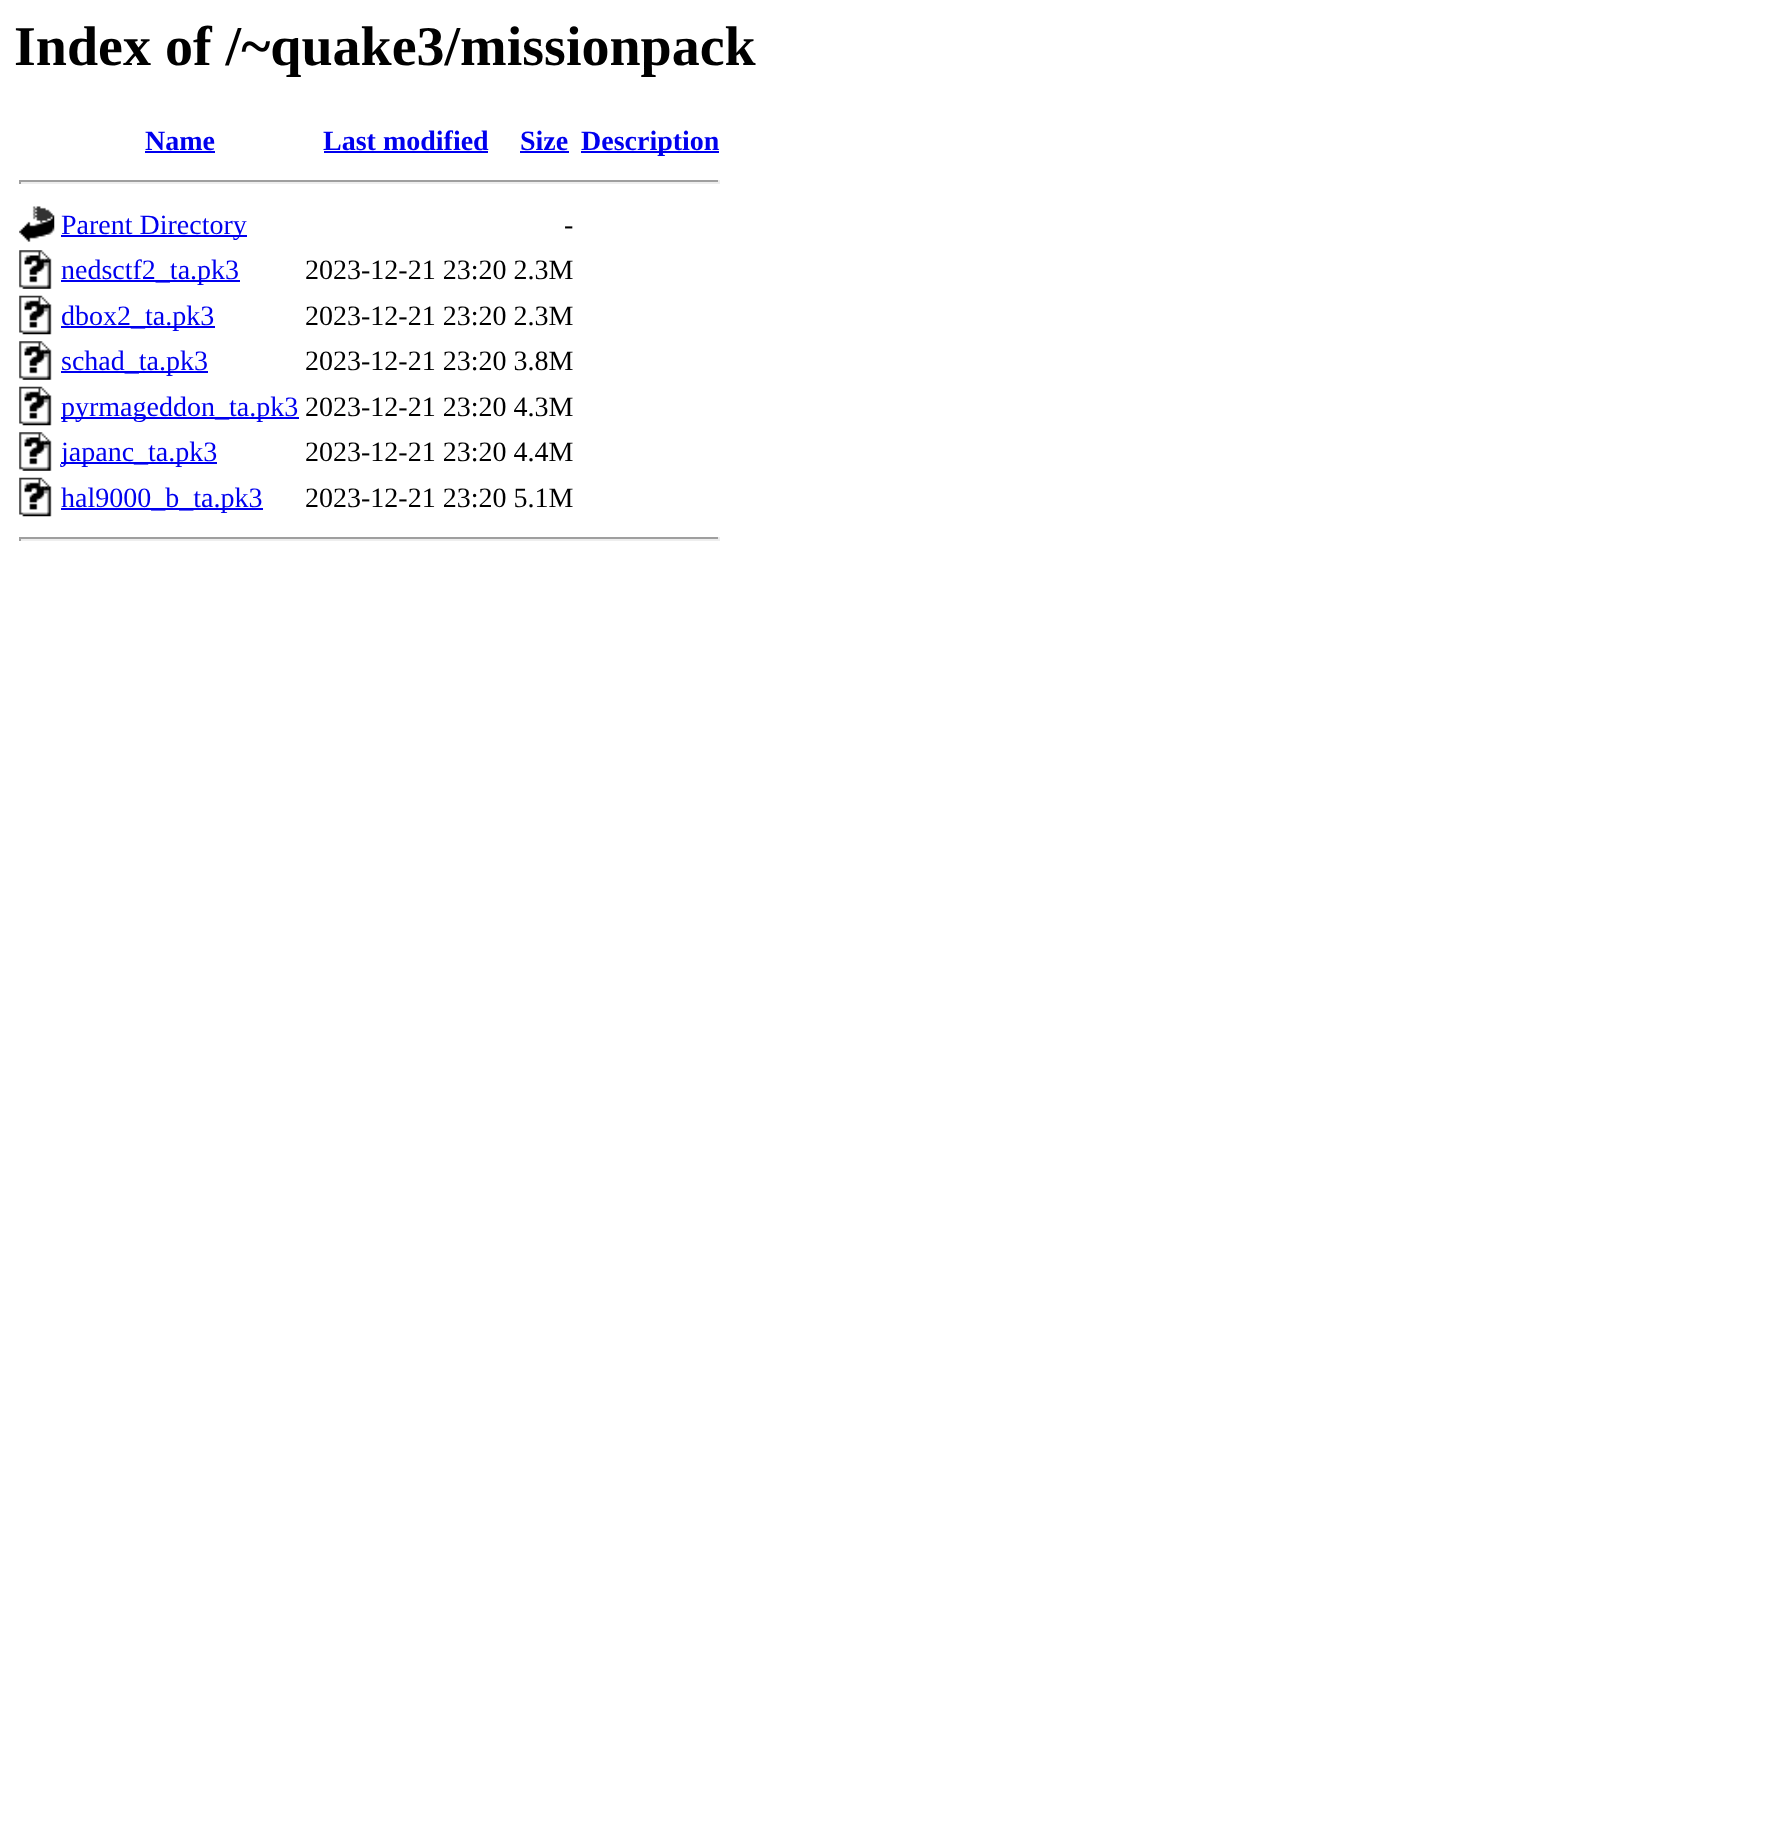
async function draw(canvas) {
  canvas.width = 1767
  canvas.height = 1833
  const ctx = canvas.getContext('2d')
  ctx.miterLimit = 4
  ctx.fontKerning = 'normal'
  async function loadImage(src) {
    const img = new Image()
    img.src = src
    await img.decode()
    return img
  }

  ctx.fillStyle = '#fff'
  ctx.fillRect(0, 0, 1767, 1833)
  ctx.font = 'bold 56px Liberation Serif'
  ctx.fillStyle = '#000'
  ctx.fillText('Index of /~quake3/missionpack', 14, 65)
  ctx.font = 'bold 28px Liberation Serif'
  ctx.fillStyle = '#00e'
  ctx.fillText('Name', 145, 150)
  ctx.fillRect(145, 151, 70, 2)
  ctx.fillText('Last modified', 323, 150)
  ctx.fillRect(324, 151, 164, 2)
  ctx.fillText('Size', 520, 150)
  ctx.fillRect(520, 151, 49, 2)
  ctx.fillRect(581, 151, 138, 2)
  ctx.fillText('Description', 581, 150)
  ctx.fillStyle = '#9f9f9f'
  ctx.fillRect(19, 180, 700, 2)
  ctx.fillStyle = '#eee'
  ctx.fillRect(718, 180, 2, 4)
  ctx.fillRect(19, 182, 700, 2)
  ctx.fillStyle = '#9f9f9f'
  ctx.fillRect(19, 180, 2, 4)
  ctx.drawImage(await loadImage('image0.png'), 19, 206, 36, 36)
  ctx.fillStyle = '#00e'
  ctx.fillRect(61, 235, 186, 2)
  ctx.font = '28px Liberation Serif'
  ctx.fillText('Parent Directory', 61, 234)
  ctx.fillStyle = '#000'
  ctx.fillText('-', 564, 234)
  ctx.drawImage(await loadImage('image1.png'), 19, 250, 33, 39)
  ctx.fillStyle = '#00e'
  ctx.fillRect(61, 280, 179, 2)
  ctx.fillText('nedsctf2_ta.pk3', 61, 279)
  ctx.fillStyle = '#000'
  ctx.fillText('2023-12-21 23:20 2.3M', 305, 279)
  ctx.drawImage(await loadImage('image2.png'), 19, 295, 33, 40)
  ctx.fillStyle = '#00e'
  ctx.fillRect(61, 326, 154, 2)
  ctx.fillText('dbox2_ta.pk3', 61, 325)
  ctx.fillStyle = '#000'
  ctx.fillText('2023-12-21 23:20 2.3M', 305, 325)
  ctx.drawImage(await loadImage('image1.png'), 19, 341, 33, 39)
  ctx.fillStyle = '#00e'
  ctx.fillRect(61, 371, 147, 2)
  ctx.fillText('schad_ta.pk3', 61, 370)
  ctx.fillStyle = '#000'
  ctx.fillText('2023-12-21 23:20 3.8M', 305, 370)
  ctx.drawImage(await loadImage('image2.png'), 19, 386, 33, 40)
  ctx.fillStyle = '#00e'
  ctx.fillRect(61, 417, 238, 2)
  ctx.fillText('pyrmageddon_ta.pk3', 61, 416)
  ctx.fillStyle = '#000'
  ctx.fillText('2023-12-21 23:20 4.3M', 305, 416)
  ctx.drawImage(await loadImage('image1.png'), 19, 432, 33, 39)
  ctx.fillStyle = '#00e'
  ctx.fillRect(61, 462, 156, 2)
  ctx.fillText('japanc_ta.pk3', 61, 461)
  ctx.fillStyle = '#000'
  ctx.fillText('2023-12-21 23:20 4.4M', 305, 461)
  ctx.drawImage(await loadImage('image2.png'), 19, 477, 33, 40)
  ctx.fillStyle = '#00e'
  ctx.fillRect(61, 508, 202, 2)
  ctx.fillText('hal9000_b_ta.pk3', 61, 507)
  ctx.fillStyle = '#000'
  ctx.fillText('2023-12-21 23:20 5.1M', 305, 507)
  ctx.fillStyle = '#9f9f9f'
  ctx.fillRect(19, 537, 700, 2)
  ctx.fillStyle = '#eee'
  ctx.fillRect(718, 537, 2, 4)
  ctx.fillRect(19, 539, 700, 2)
  ctx.fillStyle = '#9f9f9f'
  ctx.fillRect(19, 537, 2, 4)
}

draw(document.querySelector('canvas'))
